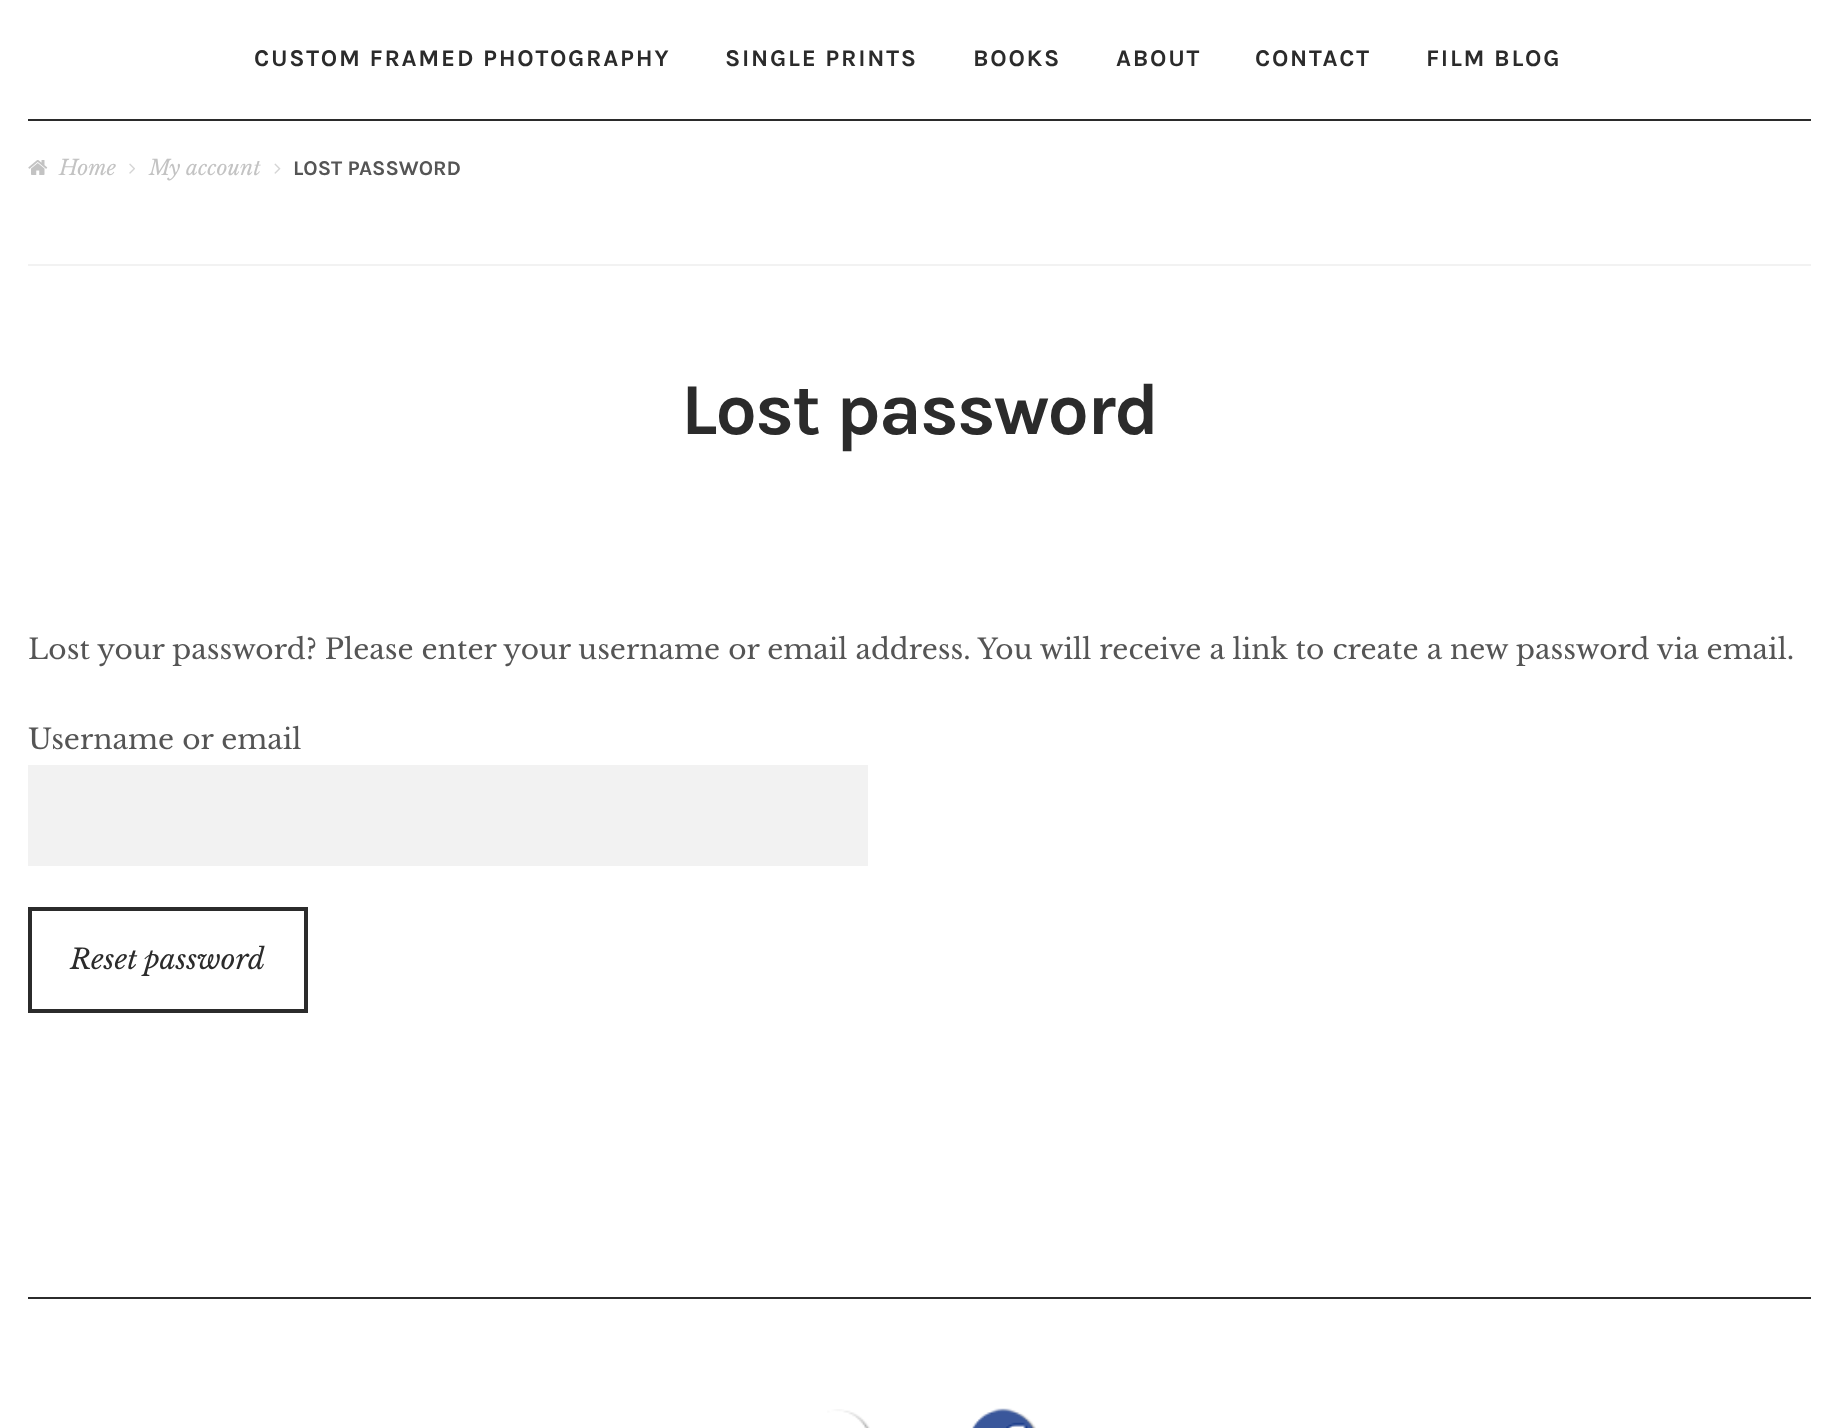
async function draw(canvas) {
  canvas.width = 1838
  canvas.height = 1428
  const ctx = canvas.getContext('2d')
  ctx.miterLimit = 4
  ctx.fontKerning = 'normal'
  async function loadImage(src) {
    const img = new Image()
    img.src = src
    await img.decode()
    return img
  }

  ctx.fillStyle = '#fff'
  ctx.fillRect(0, 0, 1838, 1428)
  ctx.fillStyle = '#2b2b2b'
  ctx.fillRect(28, 119, 1783, 2)
  ctx.letterSpacing = '1.75px'
  ctx.font = 'bold 24px Karla'
  ctx.fillText('CUSTOM FRAMED PHOTOGRAPHY', 254, 66)
  ctx.fillText('SINGLE PRINTS', 725, 66)
  ctx.fillText('BOOKS', 973, 66)
  ctx.fillText('ABOUT', 1116, 66)
  ctx.fillText('CONTACT', 1255, 66)
  ctx.fillText('FILM BLOG', 1426, 66)
  ctx.drawImage(await loadImage('image0.png'), 28, 160, 20, 15)
  ctx.letterSpacing = '0px'
  ctx.font = 'italic 21px Libre Baskerville'
  ctx.fillStyle = '#c3c3c3'
  ctx.fillText('Home', 59, 175)
  ctx.drawImage(await loadImage('image1.png'), 129, 163, 6, 11)
  ctx.fillText('My account', 149, 175)
  ctx.drawImage(await loadImage('image2.png'), 274, 163, 7, 11)
  ctx.font = 'bold 21px Karla'
  ctx.fillStyle = '#555'
  ctx.fillText('LOST PASSWORD', 293, 175)
  ctx.fillStyle = '#f2f2f2'
  ctx.fillRect(28, 264, 1783, 2)
  ctx.letterSpacing = '-1.75px'
  ctx.font = 'bold 73.25px Karla'
  ctx.fillStyle = '#2b2b2b'
  ctx.fillText('Lost password', 681, 434)
  ctx.letterSpacing = '0px'
  ctx.font = '28px Libre Baskerville'
  ctx.fillStyle = '#555'
  ctx.fillText('Lost your password? Please enter your username or email address. You will receive a link to create a new password via email.', 28, 659)
  ctx.fillText('Username or email', 28, 749)
  ctx.fillStyle = '#f2f2f2'
  ctx.fillRect(28, 765, 840, 101)
  ctx.strokeStyle = '#2b2b2b'
  ctx.lineWidth = 4
  ctx.strokeRect(30, 909, 276, 102)
  ctx.font = 'italic 28px Libre Baskerville'
  ctx.fillStyle = '#2b2b2b'
  ctx.fillText('Reset password', 70, 969)
  ctx.fillRect(28, 1297, 1783, 2)
  ctx.drawImage(await loadImage('image3.png'), 827, 1409, 43, 19)
  ctx.drawImage(await loadImage('image4.png'), 972, 1408, 64, 20)
}

draw(document.querySelector('canvas'))
